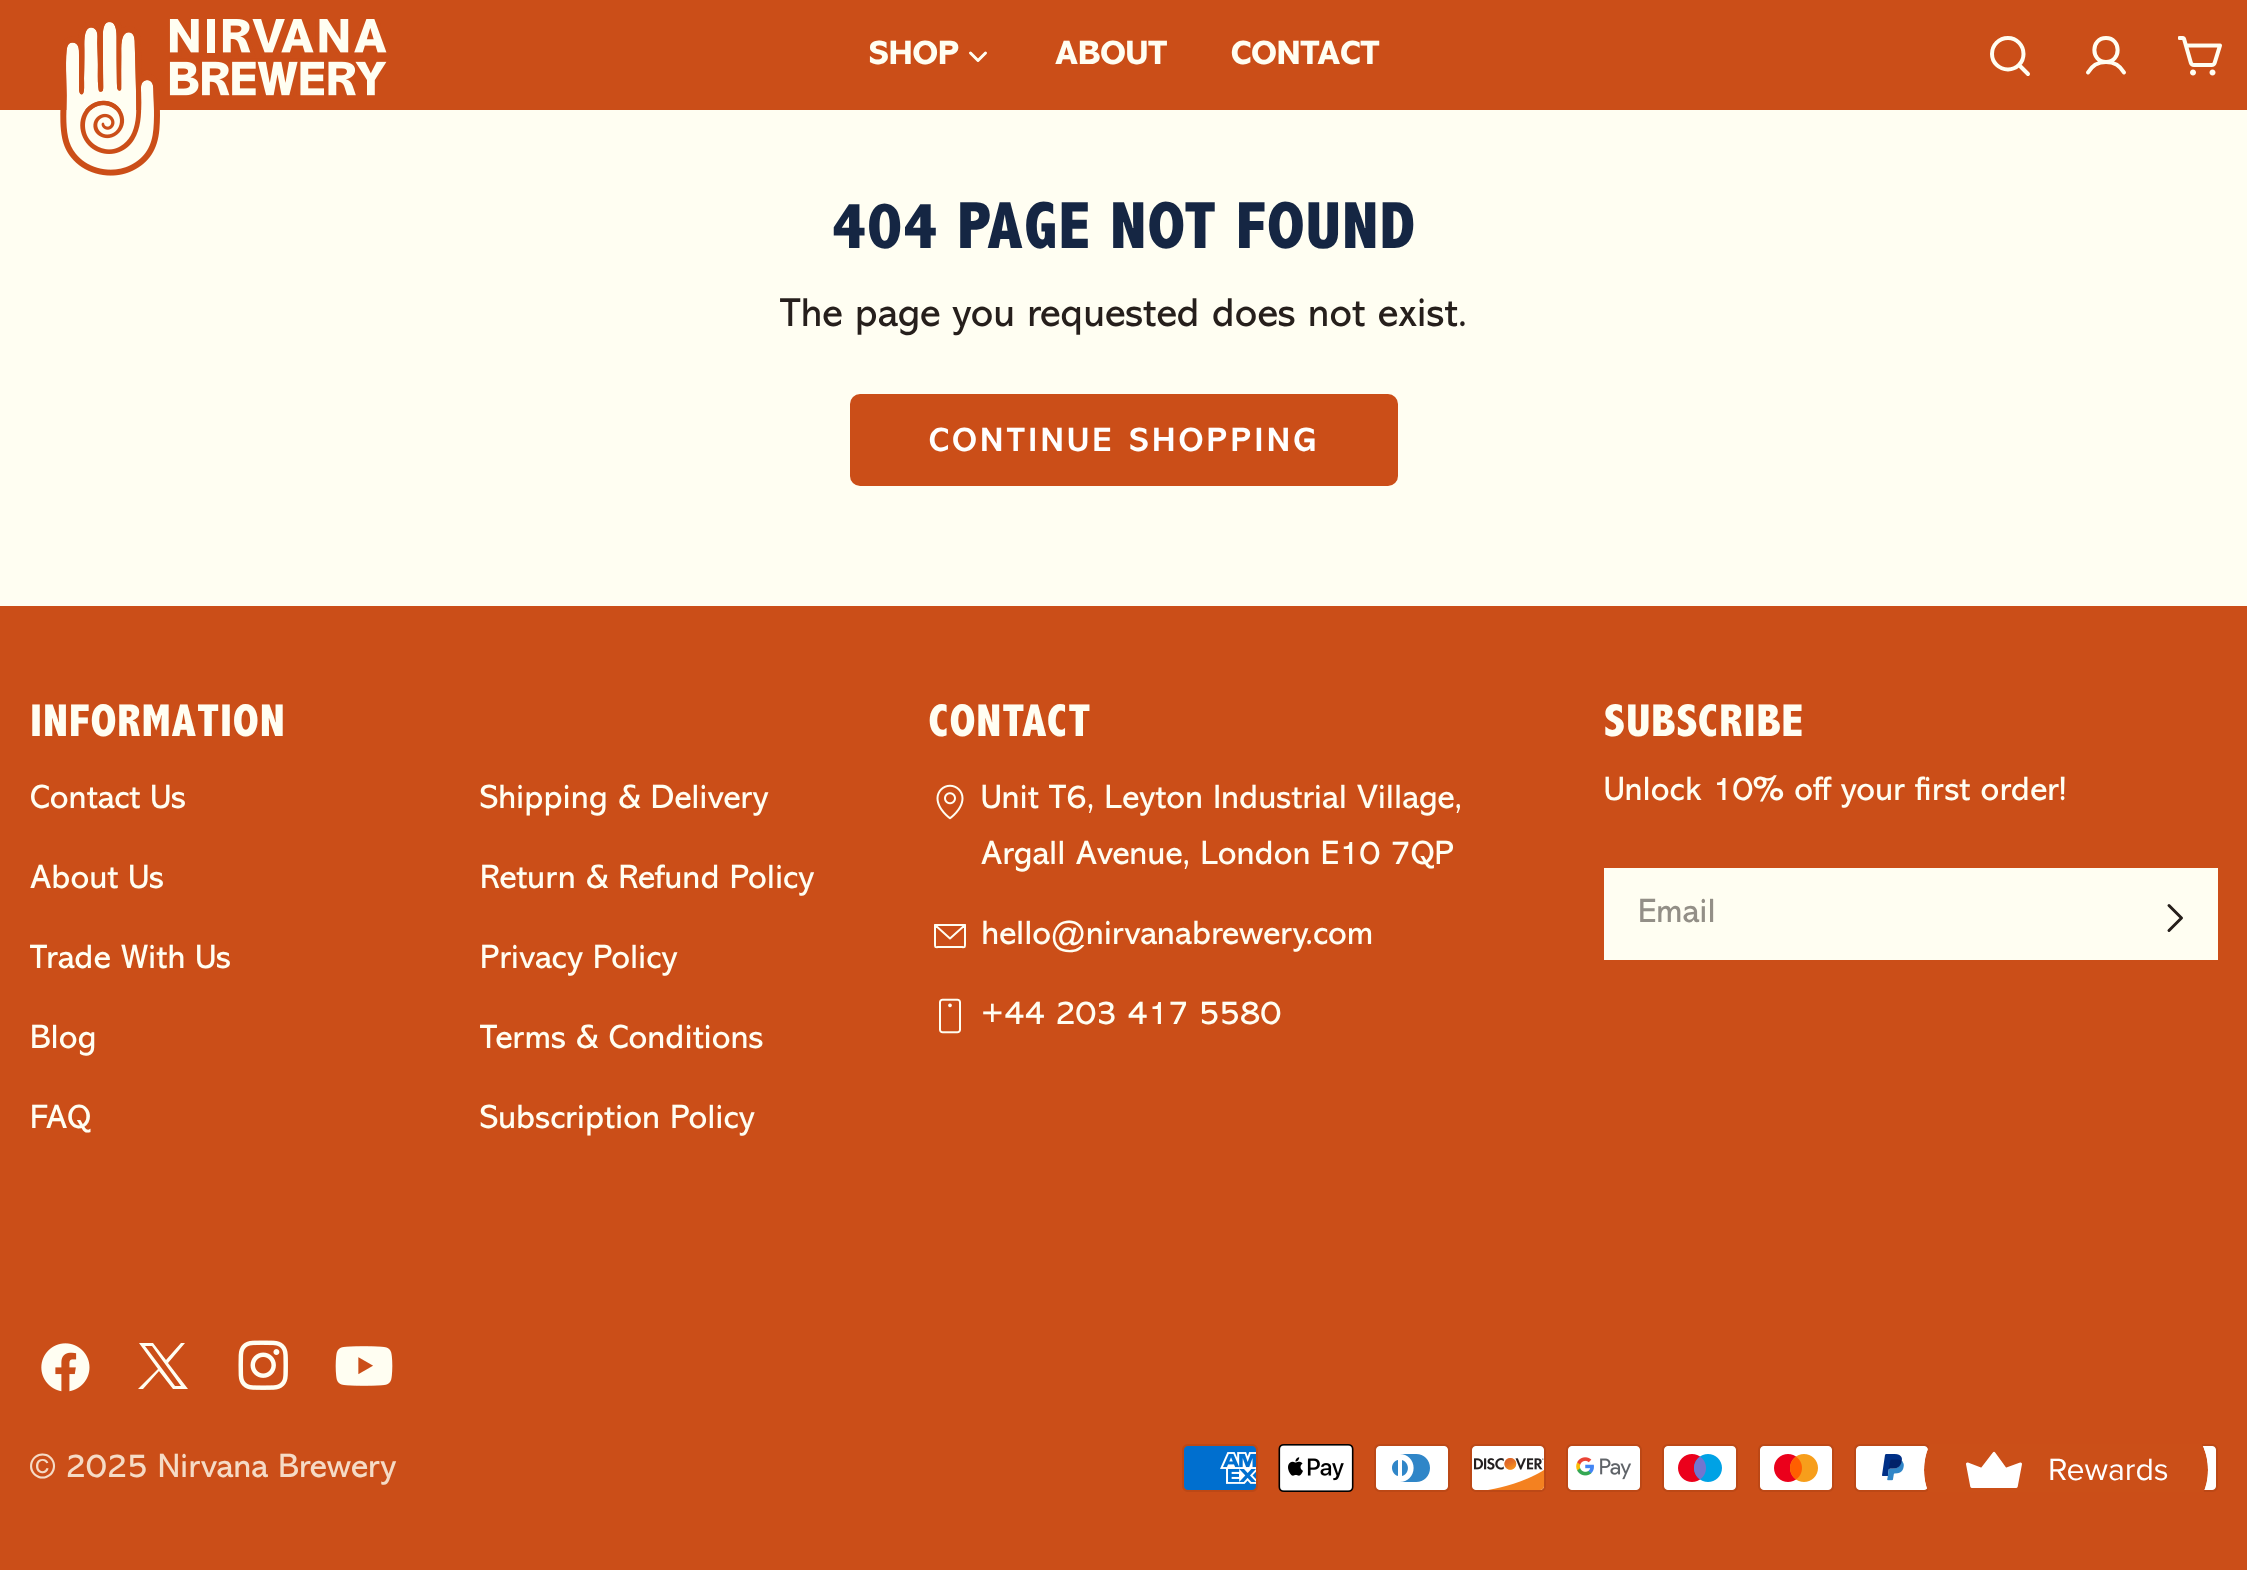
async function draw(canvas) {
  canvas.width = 2247
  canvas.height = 1570
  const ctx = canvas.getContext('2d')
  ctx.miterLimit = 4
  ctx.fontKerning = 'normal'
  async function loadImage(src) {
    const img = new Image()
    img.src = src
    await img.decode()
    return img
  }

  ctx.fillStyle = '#fffef2'
  ctx.fillRect(0, 0, 2247, 1570)
  ctx.fillStyle = '#cb4e18'
  ctx.fillRect(0, 0, 2247, 110)
  ctx.drawImage(await loadImage('image0.png'), 60, 22, 100, 154)
  ctx.drawImage(await loadImage('image1.png'), 169, 19, 218, 77)
  ctx.font = '800 34px "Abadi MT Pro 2"'
  ctx.fillStyle = '#fffef2'
  ctx.fillText('SHOP', 869, 64)
  ctx.beginPath()
  ctx.moveTo(985.5, 53)
  ctx.lineTo(978, 60.5)
  ctx.lineTo(970.5, 53)
  ctx.strokeStyle = '#fffef2'
  ctx.lineWidth = 3
  ctx.lineCap = 'round'
  ctx.lineJoin = 'round'
  ctx.stroke()
  ctx.fillText('ABOUT', 1055, 64)
  ctx.fillText('CONTACT', 1231, 64)
  ctx.beginPath()
  ctx.moveTo(2008, 69.5)
  ctx.bezierCurveTo(2016.5, 69.5, 2023.5, 62.5, 2023.5, 54)
  ctx.bezierCurveTo(2023.5, 45, 2016.5, 38, 2008, 38)
  ctx.bezierCurveTo(1999, 38, 1992, 45, 1992, 54)
  ctx.bezierCurveTo(1992, 62.5, 1999, 69.5, 2008, 69.5)
  ctx.closePath()
  ctx.moveTo(2019, 65)
  ctx.lineTo(2028, 74)
  ctx.lineWidth = 4
  ctx.stroke()
  ctx.beginPath()
  ctx.moveTo(2106, 62)
  ctx.bezierCurveTo(2121.5, 62, 2121.5, 38, 2106, 38)
  ctx.bezierCurveTo(2090.5, 38, 2090.5, 62, 2106, 62)
  ctx.closePath()
  ctx.moveTo(2088, 72.5)
  ctx.bezierCurveTo(2096, 58.5, 2116, 58.5, 2124, 72.5)
  ctx.stroke()
  ctx.drawImage(await loadImage('image2.png'), 2178, 36, 44, 40)
  ctx.letterSpacing = '1.3px'
  ctx.font = '800 67.25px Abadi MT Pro'
  ctx.fillStyle = '#152643'
  ctx.fillText('404 PAGE NOT FOUND', 832, 248)
  ctx.letterSpacing = '0px'
  ctx.font = '40.75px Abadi'
  ctx.fillStyle = '#261f1c'
  ctx.fillText('The page you requested does not exist.', 780, 326)
  ctx.fillStyle = '#cb4e18'
  ctx.beginPath()
  ctx.roundRect(850, 394, 548, 92, 10)
  ctx.fill()
  ctx.letterSpacing = '3.4px'
  ctx.font = 'bold 34px Abadi'
  ctx.fillStyle = '#fff'
  ctx.fillText('CONTINUE SHOPPING', 929, 451)
  ctx.fillStyle = '#cb4e18'
  ctx.fillRect(0, 606, 2247, 964)
  ctx.letterSpacing = '1px'
  ctx.font = '800 46.25px Abadi MT Pro'
  ctx.fillStyle = '#fffef2'
  ctx.fillText('INFORMATION', 30, 736)
  ctx.letterSpacing = '0px'
  ctx.font = '34px Abadi'
  ctx.fillText('Contact Us', 30, 808)
  ctx.fillText('Shipping & Delivery', 480, 808)
  ctx.fillText('About Us', 30, 888)
  ctx.fillText('Return & Refund Policy', 480, 888)
  ctx.fillText('Trade With Us', 30, 968)
  ctx.fillText('Privacy Policy', 480, 968)
  ctx.fillText('Blog', 30, 1048)
  ctx.fillText('Terms & Conditions', 480, 1048)
  ctx.fillText('FAQ', 30, 1128)
  ctx.fillText('Subscription Policy', 480, 1128)
  ctx.letterSpacing = '1px'
  ctx.font = '800 46.25px Abadi MT Pro'
  ctx.fillText('CONTACT', 929, 736)
  ctx.drawImage(await loadImage('image3.png'), 936, 784, 28, 36)
  ctx.letterSpacing = '0px'
  ctx.font = '34px Abadi'
  ctx.fillText('Unit T6, Leyton Industrial Village,', 981, 808)
  ctx.fillText('Argall Avenue, London E10 7QP', 981, 864)
  ctx.beginPath()
  ctx.moveTo(935, 925)
  ctx.lineTo(965, 925)
  ctx.lineTo(965, 942.5)
  ctx.bezierCurveTo(965, 948.5, 965.5, 947, 959, 947)
  ctx.lineTo(941, 947)
  ctx.bezierCurveTo(934.5, 947, 935, 948.5, 935, 942.5)
  ctx.closePath()
  ctx.moveTo(965, 925)
  ctx.lineTo(950, 938.5)
  ctx.lineTo(935, 925)
  ctx.lineWidth = 2
  ctx.stroke()
  ctx.fillText('hello@nirvanabrewery.com', 981, 944)
  ctx.drawImage(await loadImage('image4.png'), 939, 998, 22, 36)
  ctx.fillText('+44 203 417 5580', 981, 1024)
  ctx.letterSpacing = '1px'
  ctx.font = '800 46.25px Abadi MT Pro'
  ctx.fillText('SUBSCRIBE', 1604, 736)
  ctx.letterSpacing = '0px'
  ctx.font = '34px Abadi'
  ctx.fillText('Unlock 10% off your first order!', 1604, 800)
  ctx.fillRect(1604, 868, 614, 92)
  ctx.fillStyle = '#938f87'
  ctx.fillText('Email', 1638, 922)
  ctx.beginPath()
  ctx.moveTo(2169, 905.5)
  ctx.lineTo(2181.5, 918)
  ctx.lineTo(2169, 930.5)
  ctx.strokeStyle = '#261f1c'
  ctx.lineWidth = 3
  ctx.stroke()
  ctx.drawImage(await loadImage('image5.png'), 41, 1343, 49, 49)
  ctx.fillStyle = '#fffef2'
  ctx.beginPath()
  ctx.moveTo(139, 1343)
  ctx.lineTo(158, 1369)
  ctx.lineTo(138, 1389)
  ctx.lineTo(143, 1389)
  ctx.lineTo(159, 1371)
  ctx.lineTo(173, 1389)
  ctx.lineTo(188, 1389)
  ctx.lineTo(168, 1363)
  ctx.lineTo(185, 1343)
  ctx.lineTo(181, 1343)
  ctx.lineTo(166, 1360)
  ctx.lineTo(153, 1343)
  ctx.closePath()
  ctx.moveTo(145, 1346)
  ctx.lineTo(152, 1346)
  ctx.lineTo(181, 1386)
  ctx.lineTo(175, 1386)
  ctx.closePath()
  ctx.fill()
  ctx.drawImage(await loadImage('image6.png'), 238, 1340, 50, 50)
  ctx.drawImage(await loadImage('image7.png'), 335, 1346, 58, 40)
  ctx.fillStyle = '#f5dbc6'
  ctx.fillText('© 2025 Nirvana Brewery', 30, 1477)
  ctx.drawImage(await loadImage('image8.png'), 1182, 1444, 76, 48)
  ctx.drawImage(await loadImage('image9.png'), 1278, 1444, 76, 48)
  ctx.drawImage(await loadImage('image10.png'), 1374, 1444, 76, 48)
  ctx.drawImage(await loadImage('image11.png'), 1470, 1444, 76, 48)
  ctx.drawImage(await loadImage('image12.png'), 1566, 1444, 76, 48)
  ctx.drawImage(await loadImage('image13.png'), 1662, 1444, 76, 48)
  ctx.drawImage(await loadImage('image14.png'), 1758, 1444, 76, 48)
  ctx.drawImage(await loadImage('image15.png'), 1854, 1444, 75, 48)
  ctx.drawImage(await loadImage('image16.png'), 2202, 1444, 16, 48)
  ctx.drawImage(await loadImage('image17.png'), 1924, 1444, 284, 48)
}

draw(document.querySelector('canvas'))
